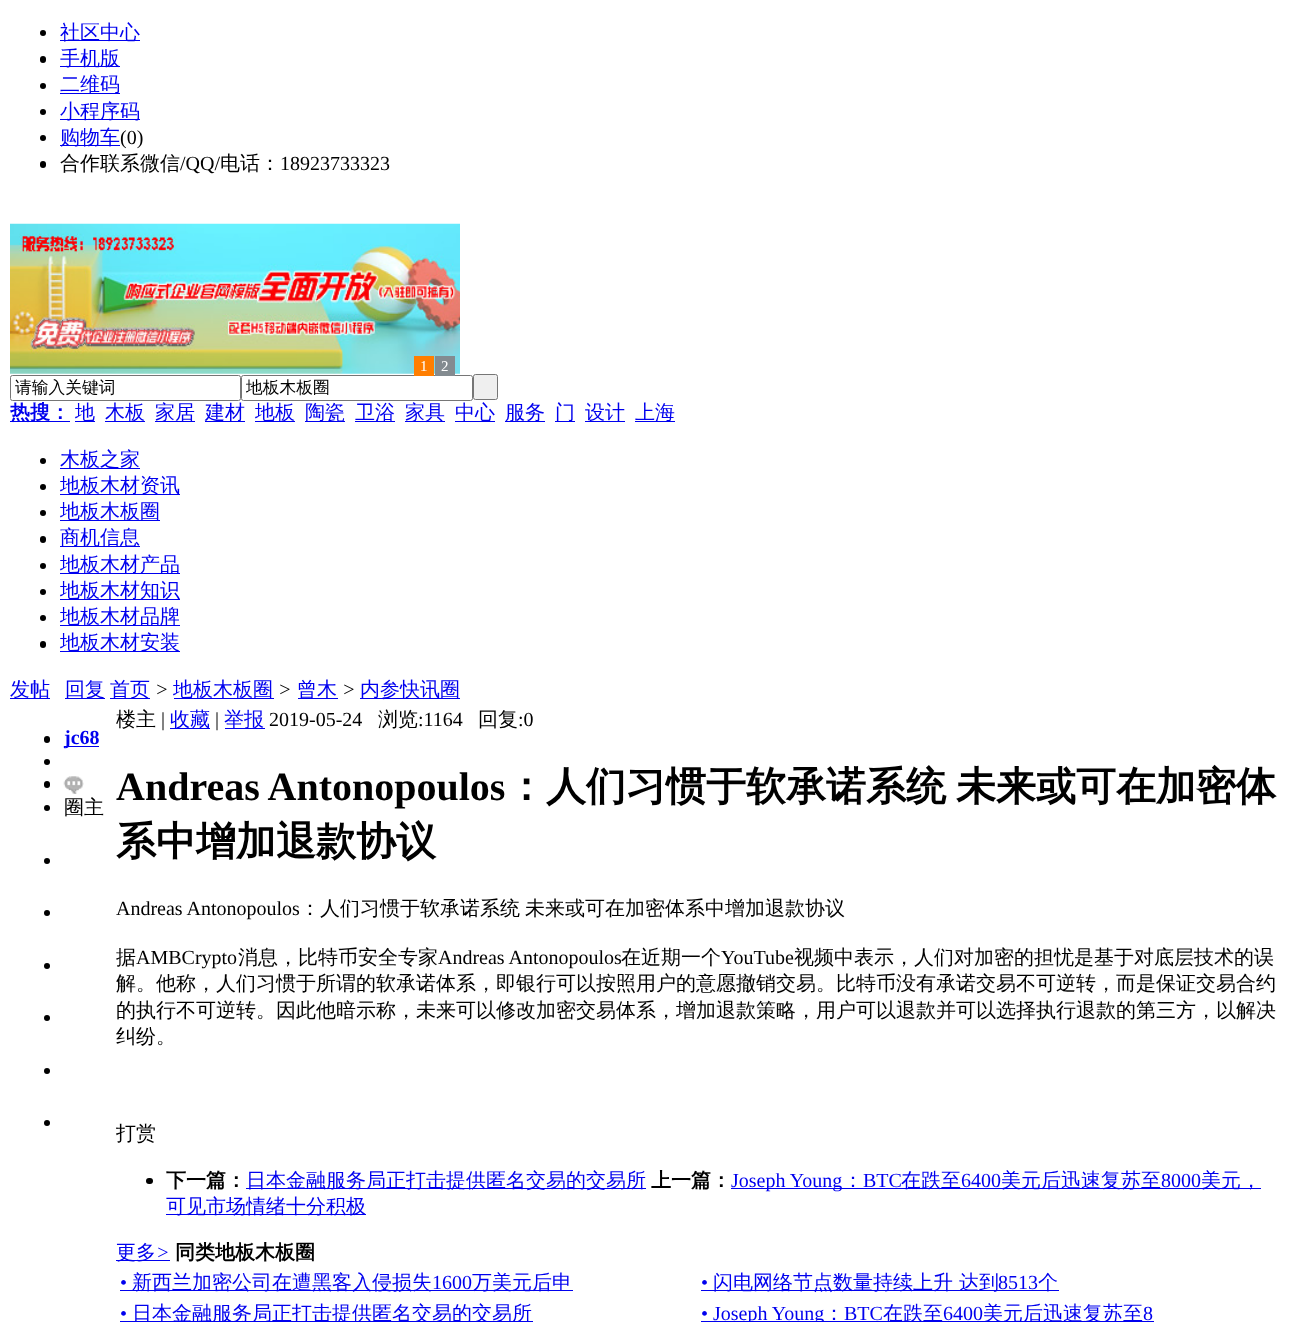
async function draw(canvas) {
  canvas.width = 1295
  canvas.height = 1322
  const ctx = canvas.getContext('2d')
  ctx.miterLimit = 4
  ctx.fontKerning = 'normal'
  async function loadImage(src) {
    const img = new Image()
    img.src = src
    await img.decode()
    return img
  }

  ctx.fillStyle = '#fff'
  ctx.fillRect(0, 0, 1295, 1322)
  ctx.fillStyle = '#000'
  ctx.beginPath()
  ctx.arc(43, 33, 3, 0, 2 * Math.PI)
  ctx.fill()
  ctx.fillStyle = '#00e'
  ctx.fillRect(60, 40, 80, 1)
  ctx.font = '500 20px WenQuanYi Zen Hei'
  ctx.fillText('社区中心', 60, 39)
  ctx.fillStyle = '#000'
  ctx.beginPath()
  ctx.roundRect(40, 56, 6, 7, 3)
  ctx.fill()
  ctx.fillStyle = '#00e'
  ctx.fillRect(60, 66, 60, 1)
  ctx.fillText('手机版', 60, 65)
  ctx.fillStyle = '#000'
  ctx.beginPath()
  ctx.arc(43, 86, 3, 0, 2 * Math.PI)
  ctx.fill()
  ctx.fillStyle = '#00e'
  ctx.fillRect(60, 93, 60, 1)
  ctx.fillText('二维码', 60, 91)
  ctx.fillStyle = '#000'
  ctx.beginPath()
  ctx.arc(43, 112, 3, 0, 2 * Math.PI)
  ctx.fill()
  ctx.fillStyle = '#00e'
  ctx.fillRect(60, 119, 80, 1)
  ctx.fillText('小程序码', 60, 118)
  ctx.fillStyle = '#000'
  ctx.beginPath()
  ctx.arc(43, 138, 3, 0, 2 * Math.PI)
  ctx.fill()
  ctx.fillStyle = '#00e'
  ctx.fillRect(60, 145, 60, 1)
  ctx.fillText('购物车', 60, 144)
  ctx.font = '20px Liberation Serif'
  ctx.fillStyle = '#000'
  ctx.fillText('(0)', 120, 144)
  ctx.beginPath()
  ctx.roundRect(40, 161, 6, 7, 3)
  ctx.fill()
  ctx.font = '500 20px WenQuanYi Zen Hei'
  ctx.fillText('合作联系微信', 60, 170)
  ctx.font = '20px Liberation Serif'
  ctx.fillText('/QQ/', 180, 170)
  ctx.font = '500 20px WenQuanYi Zen Hei'
  ctx.fillText('电话：', 220, 170)
  ctx.font = '20px Liberation Serif'
  ctx.fillText('18923733323', 280, 170)
  ctx.drawImage(await loadImage('image0.png'), 10, 223, 450, 151)
  ctx.beginPath()
  ctx.roundRect(241.5, 375.5, 231, 25, 2)
  ctx.strokeStyle = '#767676'
  ctx.stroke()
  ctx.fillStyle = '#ff7e00'
  ctx.fillRect(414, 356, 20, 20)
  ctx.font = '15px Liberation Serif'
  ctx.fillStyle = '#fff'
  ctx.fillText('1', 420, 371)
  ctx.fillStyle = '#838b90'
  ctx.fillRect(435, 356, 20, 20)
  ctx.fillStyle = '#fff'
  ctx.fillText('2', 441, 371)
  ctx.beginPath()
  ctx.roundRect(10.5, 375.5, 230, 25, 2)
  ctx.stroke()
  ctx.font = '500 16.75px WenQuanYi Zen Hei'
  ctx.fillStyle = '#000'
  ctx.fillText('请输入关键词', 15, 393)
  ctx.fillText('地板木板圈', 246, 393)
  ctx.fillStyle = '#efefef'
  ctx.beginPath()
  ctx.roundRect(473.5, 374.5, 24, 25, 2)
  ctx.fill()
  ctx.stroke()
  ctx.fillStyle = '#00e'
  ctx.fillRect(10, 421, 60, 1)
  ctx.font = 'bold 20px WenQuanYi Zen Hei'
  ctx.fillText('热搜：', 10, 419)
  ctx.fillRect(75, 421, 20, 1)
  ctx.font = '500 20px WenQuanYi Zen Hei'
  ctx.fillText('地', 75, 419)
  ctx.fillRect(105, 421, 40, 1)
  ctx.fillText('木板', 105, 419)
  ctx.fillRect(155, 421, 40, 1)
  ctx.fillText('家居', 155, 419)
  ctx.fillRect(205, 421, 40, 1)
  ctx.fillText('建材', 205, 419)
  ctx.fillRect(255, 421, 40, 1)
  ctx.fillText('地板', 255, 419)
  ctx.fillRect(305, 421, 40, 1)
  ctx.fillText('陶瓷', 305, 419)
  ctx.fillRect(355, 421, 40, 1)
  ctx.fillText('卫浴', 355, 419)
  ctx.fillRect(405, 421, 40, 1)
  ctx.fillText('家具', 405, 419)
  ctx.fillRect(455, 421, 40, 1)
  ctx.fillText('中心', 455, 419)
  ctx.fillRect(505, 421, 40, 1)
  ctx.fillText('服务', 505, 419)
  ctx.fillRect(555, 421, 20, 1)
  ctx.fillText('门', 555, 419)
  ctx.fillRect(585, 421, 40, 1)
  ctx.fillText('设计', 585, 419)
  ctx.fillRect(635, 421, 40, 1)
  ctx.fillText('上海', 635, 419)
  ctx.fillStyle = '#000'
  ctx.beginPath()
  ctx.arc(43, 461, 3, 0, 2 * Math.PI)
  ctx.fill()
  ctx.fillStyle = '#00e'
  ctx.fillRect(60, 468, 80, 1)
  ctx.fillText('木板之家', 60, 466)
  ctx.fillStyle = '#000'
  ctx.beginPath()
  ctx.arc(43, 487, 3, 0, 2 * Math.PI)
  ctx.fill()
  ctx.fillStyle = '#00e'
  ctx.fillRect(60, 494, 120, 1)
  ctx.fillText('地板木材资讯', 60, 492)
  ctx.fillStyle = '#000'
  ctx.beginPath()
  ctx.arc(43, 513, 3, 0, 2 * Math.PI)
  ctx.fill()
  ctx.fillStyle = '#00e'
  ctx.fillRect(60, 520, 100, 1)
  ctx.fillText('地板木板圈', 60, 518)
  ctx.fillStyle = '#000'
  ctx.beginPath()
  ctx.roundRect(40, 536, 6, 7, 3)
  ctx.fill()
  ctx.fillStyle = '#00e'
  ctx.fillRect(60, 546, 80, 1)
  ctx.fillText('商机信息', 60, 544)
  ctx.fillStyle = '#000'
  ctx.beginPath()
  ctx.arc(43, 566, 3, 0, 2 * Math.PI)
  ctx.fill()
  ctx.fillStyle = '#00e'
  ctx.fillRect(60, 573, 120, 1)
  ctx.fillText('地板木材产品', 60, 571)
  ctx.fillStyle = '#000'
  ctx.beginPath()
  ctx.arc(43, 592, 3, 0, 2 * Math.PI)
  ctx.fill()
  ctx.fillStyle = '#00e'
  ctx.fillRect(60, 599, 120, 1)
  ctx.fillText('地板木材知识', 60, 597)
  ctx.fillStyle = '#000'
  ctx.beginPath()
  ctx.arc(43, 618, 3, 0, 2 * Math.PI)
  ctx.fill()
  ctx.fillStyle = '#00e'
  ctx.fillRect(60, 625, 120, 1)
  ctx.fillText('地板木材品牌', 60, 623)
  ctx.fillStyle = '#000'
  ctx.beginPath()
  ctx.roundRect(40, 641, 6, 7, 3)
  ctx.fill()
  ctx.fillStyle = '#00e'
  ctx.fillRect(60, 651, 120, 1)
  ctx.fillText('地板木材安装', 60, 649)
  ctx.fillRect(10, 698, 40, 1)
  ctx.fillText('发帖', 10, 696)
  ctx.fillRect(65, 698, 40, 1)
  ctx.fillText('回复', 65, 696)
  ctx.fillRect(110, 698, 40, 1)
  ctx.fillText('首页', 110, 696)
  ctx.font = 'italic 20px Liberation Serif'
  ctx.fillStyle = '#000'
  ctx.fillText('>', 155, 696)
  ctx.fillStyle = '#00e'
  ctx.fillRect(174, 698, 100, 1)
  ctx.font = '500 20px WenQuanYi Zen Hei'
  ctx.fillText('地板木板圈', 173, 696)
  ctx.font = 'italic 20px Liberation Serif'
  ctx.fillStyle = '#000'
  ctx.fillText('>', 278, 696)
  ctx.fillStyle = '#00e'
  ctx.fillRect(298, 698, 40, 1)
  ctx.font = '500 20px WenQuanYi Zen Hei'
  ctx.fillText('曾木', 297, 696)
  ctx.font = 'italic 20px Liberation Serif'
  ctx.fillStyle = '#000'
  ctx.fillText('>', 342, 696)
  ctx.fillStyle = '#00e'
  ctx.fillRect(360, 698, 100, 1)
  ctx.font = '500 20px WenQuanYi Zen Hei'
  ctx.fillText('内参快讯圈', 360, 696)
  ctx.fillStyle = '#000'
  ctx.beginPath()
  ctx.roundRect(44, 736, 6, 7, 3)
  ctx.fill()
  ctx.fillStyle = '#00e'
  ctx.fillRect(64, 746, 35, 1)
  ctx.font = 'bold 20px Liberation Serif'
  ctx.fillText('jc68', 64, 744)
  ctx.fillStyle = '#000'
  ctx.beginPath()
  ctx.arc(47, 762, 3, 0, 2 * Math.PI)
  ctx.fill()
  ctx.beginPath()
  ctx.roundRect(44, 781, 6, 7, 3)
  ctx.fill()
  ctx.drawImage(await loadImage('image1.png'), 63, 776, 21, 18)
  ctx.beginPath()
  ctx.arc(47, 808, 3, 0, 2 * Math.PI)
  ctx.fill()
  ctx.font = '500 20px WenQuanYi Zen Hei'
  ctx.fillText('圈主', 64, 814)
  ctx.beginPath()
  ctx.arc(47, 861, 3, 0, 2 * Math.PI)
  ctx.fill()
  ctx.beginPath()
  ctx.arc(47, 913, 3, 0, 2 * Math.PI)
  ctx.fill()
  ctx.beginPath()
  ctx.arc(47, 966, 3, 0, 2 * Math.PI)
  ctx.fill()
  ctx.beginPath()
  ctx.arc(47, 1018, 3, 0, 2 * Math.PI)
  ctx.fill()
  ctx.beginPath()
  ctx.arc(47, 1071, 3, 0, 2 * Math.PI)
  ctx.fill()
  ctx.beginPath()
  ctx.arc(47, 1123, 3, 0, 2 * Math.PI)
  ctx.fill()
  ctx.fillText('楼主', 116, 726)
  ctx.font = '20px Liberation Serif'
  ctx.fillText('|', 161, 726)
  ctx.fillStyle = '#00e'
  ctx.fillRect(170, 728, 40, 1)
  ctx.font = '500 20px WenQuanYi Zen Hei'
  ctx.fillText('收藏', 170, 726)
  ctx.font = '20px Liberation Serif'
  ctx.fillStyle = '#000'
  ctx.fillText('|', 215, 726)
  ctx.fillStyle = '#00e'
  ctx.fillRect(225, 728, 40, 1)
  ctx.font = '500 20px WenQuanYi Zen Hei'
  ctx.fillText('举报', 224, 726)
  ctx.font = '20px Liberation Serif'
  ctx.fillStyle = '#000'
  ctx.fillText('2019-05-24', 269, 726)
  ctx.font = '500 20px WenQuanYi Zen Hei'
  ctx.fillText('浏览', 378, 726)
  ctx.font = '20px Liberation Serif'
  ctx.fillText(':1164', 418, 726)
  ctx.font = '500 20px WenQuanYi Zen Hei'
  ctx.fillText('回复', 478, 726)
  ctx.font = '20px Liberation Serif'
  ctx.fillText(':0', 518, 726)
  ctx.font = 'bold 40px Liberation Serif'
  ctx.fillText('Andreas Antonopoulos', 116, 800)
  ctx.font = 'bold 40px WenQuanYi Zen Hei'
  ctx.fillText('：人们习惯于软承诺系统', 506, 800)
  ctx.fillText('未来或可在加密体', 956, 800)
  ctx.fillText('系中增加退款协议', 116, 855)
  ctx.font = '20px Liberation Serif'
  ctx.fillText('Andreas Antonopoulos', 116, 915)
  ctx.font = '500 20px WenQuanYi Zen Hei'
  ctx.fillText('：人们习惯于软承诺系统', 300, 915)
  ctx.fillText('未来或可在加密体系中增加退款协议', 525, 915)
  ctx.fillText('据', 116, 964)
  ctx.font = '20px Liberation Serif'
  ctx.fillText('AMBCrypto', 136, 964)
  ctx.font = '500 20px WenQuanYi Zen Hei'
  ctx.fillText('消息，比特币安全专家', 238, 964)
  ctx.font = '20px Liberation Serif'
  ctx.fillText('Andreas Antonopoulos', 438, 964)
  ctx.font = '500 20px WenQuanYi Zen Hei'
  ctx.fillText('在近期一个', 621, 964)
  ctx.font = '20px Liberation Serif'
  ctx.fillText('YouTube', 721, 964)
  ctx.font = '500 20px WenQuanYi Zen Hei'
  ctx.fillText('视频中表示，人们对加密的担忧是基于对底层技术的误', 794, 964)
  ctx.fillText('解。他称，人们习惯于所谓的软承诺体系，即银行可以按照用户的意愿撤销交易。比特币没有承诺交易不可逆转，而是保证交易合约', 116, 990)
  ctx.fillText('的执行不可逆转。因此他暗示称，未来可以修改加密交易体系，增加退款策略，用户可以退款并可以选择执行退款的第三方，以解决', 116, 1017)
  ctx.fillText('纠纷。', 116, 1043)
  ctx.fillText('打赏', 116, 1140)
  ctx.beginPath()
  ctx.roundRect(146, 1178, 7, 6, 3)
  ctx.fill()
  ctx.font = 'bold 20px WenQuanYi Zen Hei'
  ctx.fillText('下一篇：', 166, 1187)
  ctx.fillStyle = '#00e'
  ctx.fillRect(246, 1188, 400, 1)
  ctx.font = '500 20px WenQuanYi Zen Hei'
  ctx.fillText('日本金融服务局正打击提供匿名交易的交易所', 246, 1187)
  ctx.font = 'bold 20px WenQuanYi Zen Hei'
  ctx.fillStyle = '#000'
  ctx.fillText('上一篇：', 651, 1187)
  ctx.fillStyle = '#00e'
  ctx.fillRect(731, 1188, 530, 1)
  ctx.font = '20px Liberation Serif'
  ctx.fillText('Joseph Young', 731, 1187)
  ctx.font = '500 20px WenQuanYi Zen Hei'
  ctx.fillText('：', 843, 1187)
  ctx.font = '20px Liberation Serif'
  ctx.fillText('BTC', 863, 1187)
  ctx.font = '500 20px WenQuanYi Zen Hei'
  ctx.fillText('在跌至', 901, 1187)
  ctx.font = '20px Liberation Serif'
  ctx.fillText('6400', 961, 1187)
  ctx.font = '500 20px WenQuanYi Zen Hei'
  ctx.fillText('美元后迅速复苏至', 1001, 1187)
  ctx.font = '20px Liberation Serif'
  ctx.fillText('8000', 1161, 1187)
  ctx.font = '500 20px WenQuanYi Zen Hei'
  ctx.fillText('美元，', 1201, 1187)
  ctx.fillRect(166, 1214, 200, 1)
  ctx.fillText('可见市场情绪十分积极', 166, 1213)
  ctx.fillRect(116, 1260, 54, 1)
  ctx.fillText('更多', 116, 1259)
  ctx.font = 'italic 20px Liberation Serif'
  ctx.fillText('>', 156, 1259)
  ctx.font = 'bold 20px WenQuanYi Zen Hei'
  ctx.fillStyle = '#000'
  ctx.fillText('同类地板木板圈', 175, 1259)
  ctx.font = '20px Liberation Serif'
  ctx.fillStyle = '#00e'
  ctx.fillText('•', 120, 1289)
  ctx.fillRect(120, 1290, 453, 1)
  ctx.font = '500 20px WenQuanYi Zen Hei'
  ctx.fillText('新西兰加密公司在遭黑客入侵损失', 132, 1289)
  ctx.font = '20px Liberation Serif'
  ctx.fillText('1600', 432, 1289)
  ctx.font = '500 20px WenQuanYi Zen Hei'
  ctx.fillText('万美元后申', 472, 1289)
  ctx.font = '20px Liberation Serif'
  ctx.fillText('•', 701, 1289)
  ctx.fillRect(701, 1290, 358, 1)
  ctx.font = '500 20px WenQuanYi Zen Hei'
  ctx.fillText('闪电网络节点数量持续上升 达到', 713, 1289)
  ctx.font = '20px Liberation Serif'
  ctx.fillText('8513', 998, 1289)
  ctx.font = '500 20px WenQuanYi Zen Hei'
  ctx.fillText('个', 1038, 1289)
  ctx.font = '20px Liberation Serif'
  ctx.fillText('•', 120, 1320)
  ctx.fillRect(120, 1321, 413, 1)
  ctx.font = '500 20px WenQuanYi Zen Hei'
  ctx.fillText('日本金融服务局正打击提供匿名交易的交易所', 132, 1320)
  ctx.fillRect(701, 1321, 453, 1)
  ctx.font = '20px Liberation Serif'
  ctx.fillText('• Joseph Young', 701, 1320)
  ctx.font = '500 20px WenQuanYi Zen Hei'
  ctx.fillText('：', 824, 1320)
  ctx.font = '20px Liberation Serif'
  ctx.fillText('BTC', 844, 1320)
  ctx.font = '500 20px WenQuanYi Zen Hei'
  ctx.fillText('在跌至', 883, 1320)
  ctx.font = '20px Liberation Serif'
  ctx.fillText('6400', 943, 1320)
  ctx.font = '500 20px WenQuanYi Zen Hei'
  ctx.fillText('美元后迅速复苏至', 983, 1320)
  ctx.font = '20px Liberation Serif'
  ctx.fillText('8', 1143, 1320)
}

draw(document.querySelector('canvas'))
